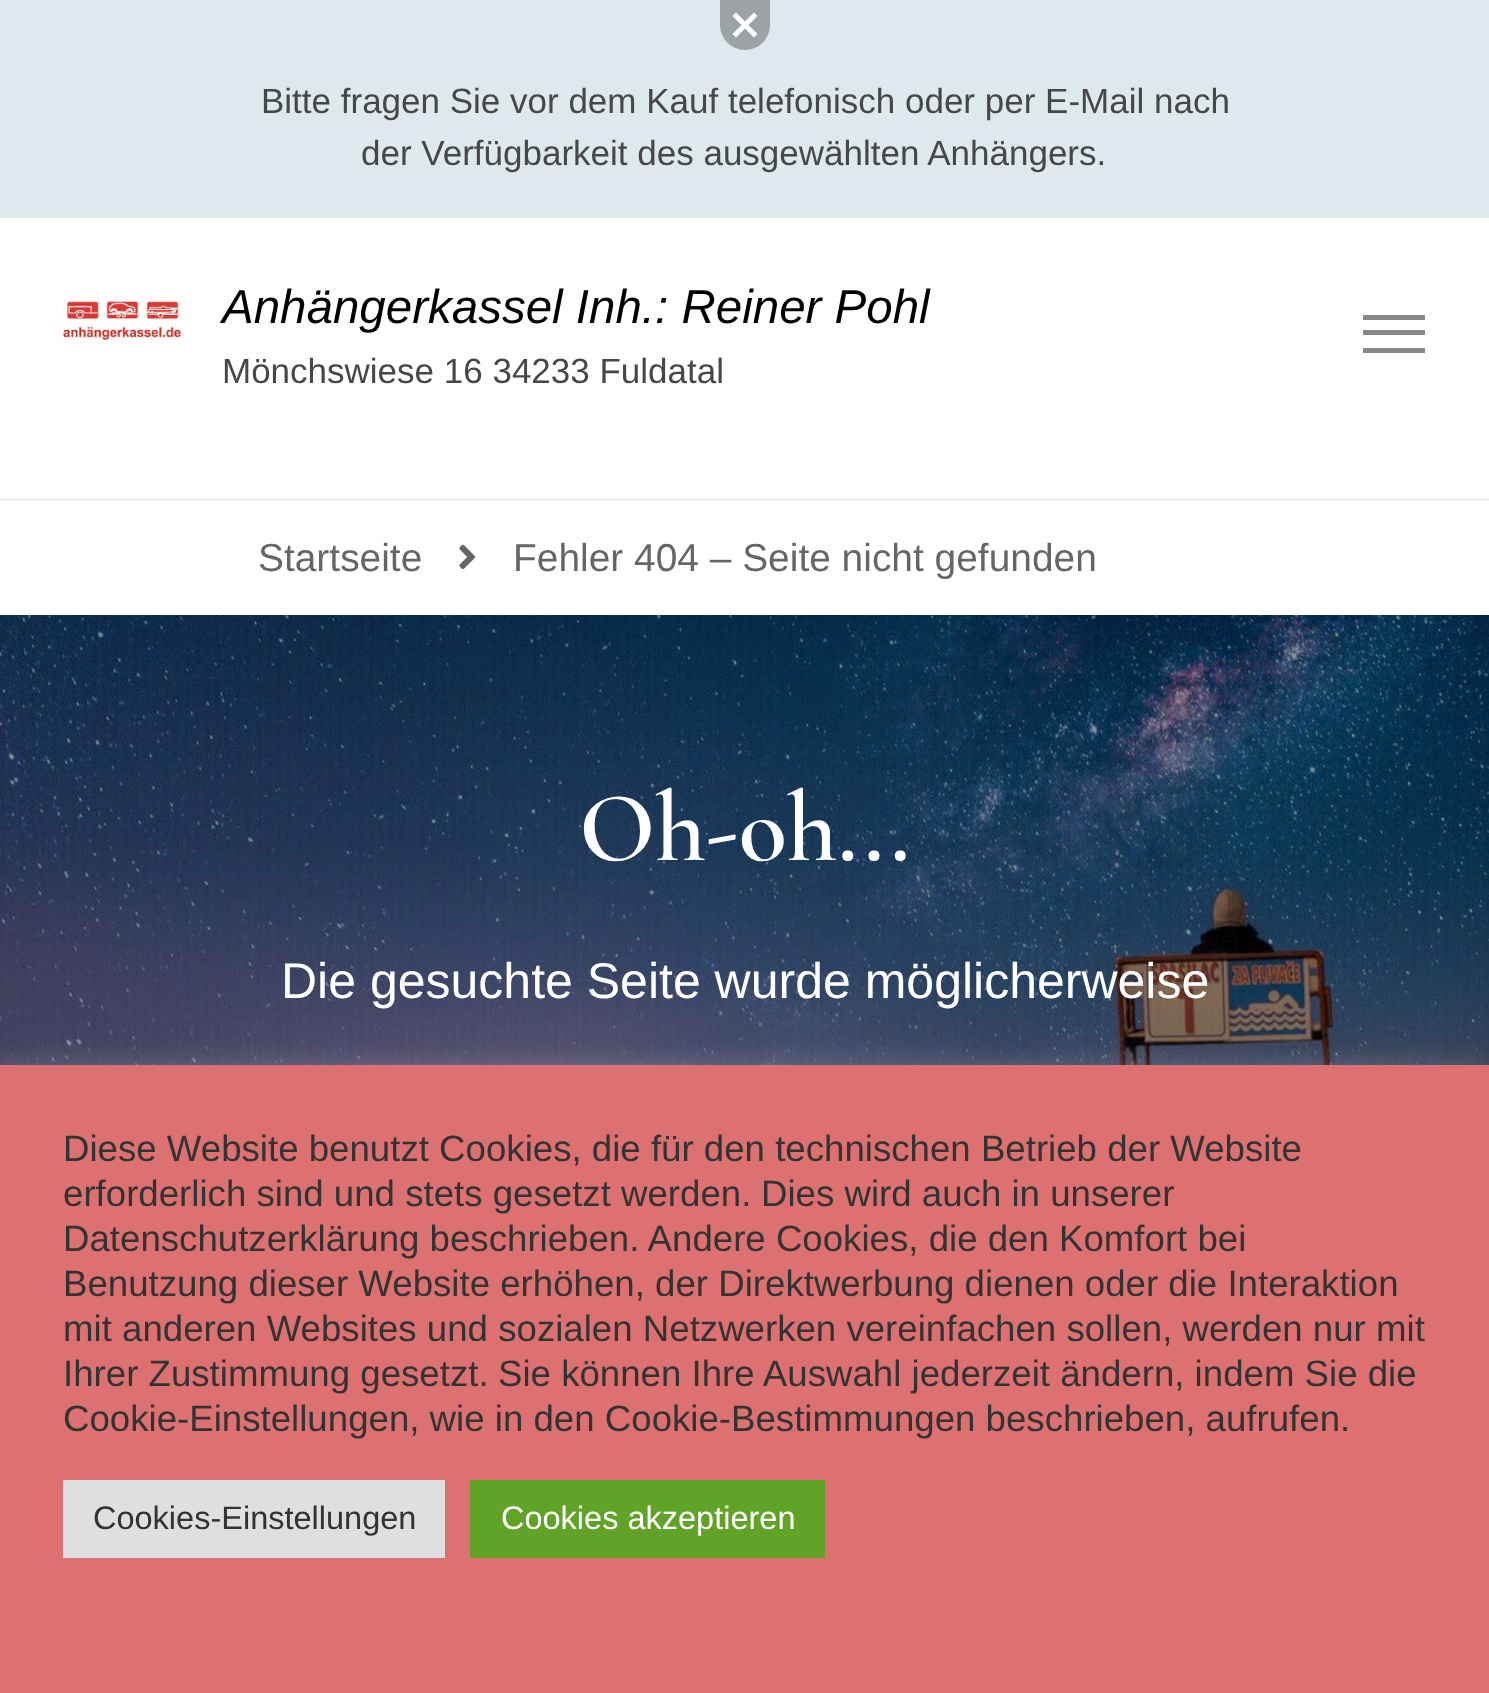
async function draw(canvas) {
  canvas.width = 1489
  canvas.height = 1693
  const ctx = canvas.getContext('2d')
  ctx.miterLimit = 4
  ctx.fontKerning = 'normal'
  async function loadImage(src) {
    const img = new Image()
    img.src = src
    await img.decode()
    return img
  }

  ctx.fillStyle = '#fff'
  ctx.fillRect(0, 0, 1489, 1693)
  ctx.fillStyle = '#dde9ed'
  ctx.fillRect(0, 0, 1489, 218)
  ctx.fillStyle = '#9ba3a6'
  ctx.beginPath()
  ctx.roundRect(720, 0, 50, 50, [0, 0, 25, 25])
  ctx.fill()
  ctx.fillStyle = '#fff'
  ctx.beginPath()
  ctx.moveTo(736, 12.5)
  ctx.lineTo(757.5, 34)
  ctx.lineTo(754, 37.5)
  ctx.lineTo(732.5, 16)
  ctx.closePath()
  ctx.fill()
  ctx.beginPath()
  ctx.moveTo(732.5, 34)
  ctx.lineTo(754, 12.5)
  ctx.lineTo(757.5, 16)
  ctx.lineTo(736, 37.5)
  ctx.closePath()
  ctx.fill()
  ctx.font = '35px Liberation Sans'
  ctx.fillStyle = '#474747'
  ctx.fillText('Bitte fragen Sie vor dem Kauf telefonisch oder per E-Mail nach', 261, 113)
  ctx.fillText('der Verfügbarkeit des ausgewählten Anhängers.', 361, 165)
  ctx.fillStyle = '#f2f2f2'
  ctx.fillRect(0, 498, 1489, 3)
  ctx.drawImage(await loadImage('image0.png'), 63, 299, 121, 41)
  ctx.font = 'italic 47.5px Liberation Sans'
  ctx.fillStyle = '#000'
  ctx.fillText('Anhängerkassel Inh.: Reiner Pohl', 222, 323)
  ctx.font = '35px Liberation Sans'
  ctx.fillStyle = '#474747'
  ctx.fillText('Mönchswiese 16 34233 Fuldatal', 222, 383)
  ctx.fillStyle = '#888'
  ctx.fillRect(1363, 315, 62, 5)
  ctx.fillRect(1363, 330, 62, 5)
  ctx.fillRect(1363, 348, 62, 5)
  ctx.font = '38.9px Liberation Sans'
  ctx.fillStyle = '#666'
  ctx.fillText('Startseite', 258, 571)
  ctx.drawImage(await loadImage('image1.png'), 459, 544, 16, 25)
  ctx.fillText('Fehler 404 – Seite nicht gefunden', 513, 571)
  ctx.drawImage(await loadImage('image2.png'), 0, 615, 1489, 450)
  ctx.font = '600 100px Cormorant'
  ctx.fillStyle = '#fff'
  ctx.fillText('Oh-oh...', 579, 860)
  ctx.font = '50px Liberation Sans'
  ctx.fillText('Die gesuchte Seite wurde möglicherweise', 281, 998)
  ctx.fillStyle = '#acabab4d'
  ctx.filter = 'blur(12.5px)'
  ctx.beginPath()
  ctx.rect(0, 1063, 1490, 630)
  ctx.fill()
  ctx.filter = 'none'
  ctx.fillStyle = '#dd7171'
  ctx.fillRect(0, 1065, 1489, 628)
  ctx.font = '36.65px Liberation Sans'
  ctx.fillStyle = '#333'
  ctx.fillText('Diese Website benutzt Cookies, die für den technischen Betrieb der Website', 63, 1161)
  ctx.fillText('erforderlich sind und stets gesetzt werden.', 63, 1206)
  ctx.fillText('Dies wird auch in unserer', 761, 1206)
  ctx.fillText('Datenschutzerklärung beschrieben. Andere Cookies, die den Komfort bei', 63, 1251)
  ctx.fillText('Benutzung dieser Website erhöhen, der Direktwerbung dienen oder die Interaktion', 63, 1296)
  ctx.fillText('mit anderen Websites und sozialen Netzwerken vereinfachen sollen, werden nur mit', 63, 1341)
  ctx.fillText('Ihrer Zustimmung gesetzt.', 63, 1386)
  ctx.fillText('Sie können Ihre Auswahl jederzeit ändern, indem Sie die', 498, 1386)
  ctx.fillText('Cookie-Einstellungen, wie in den Cookie-Bestimmungen beschrieben, aufrufen.', 63, 1431)
  ctx.fillStyle = '#dedfe0'
  ctx.fillRect(63, 1480, 382, 78)
  ctx.font = '32.5px Liberation Sans'
  ctx.fillStyle = '#333'
  ctx.fillText('Cookies-Einstellungen', 93, 1529)
  ctx.fillStyle = '#61a229'
  ctx.fillRect(470, 1480, 355, 78)
  ctx.fillStyle = '#fff'
  ctx.fillText('Cookies akzeptieren', 501, 1529)
}

draw(document.querySelector('canvas'))
